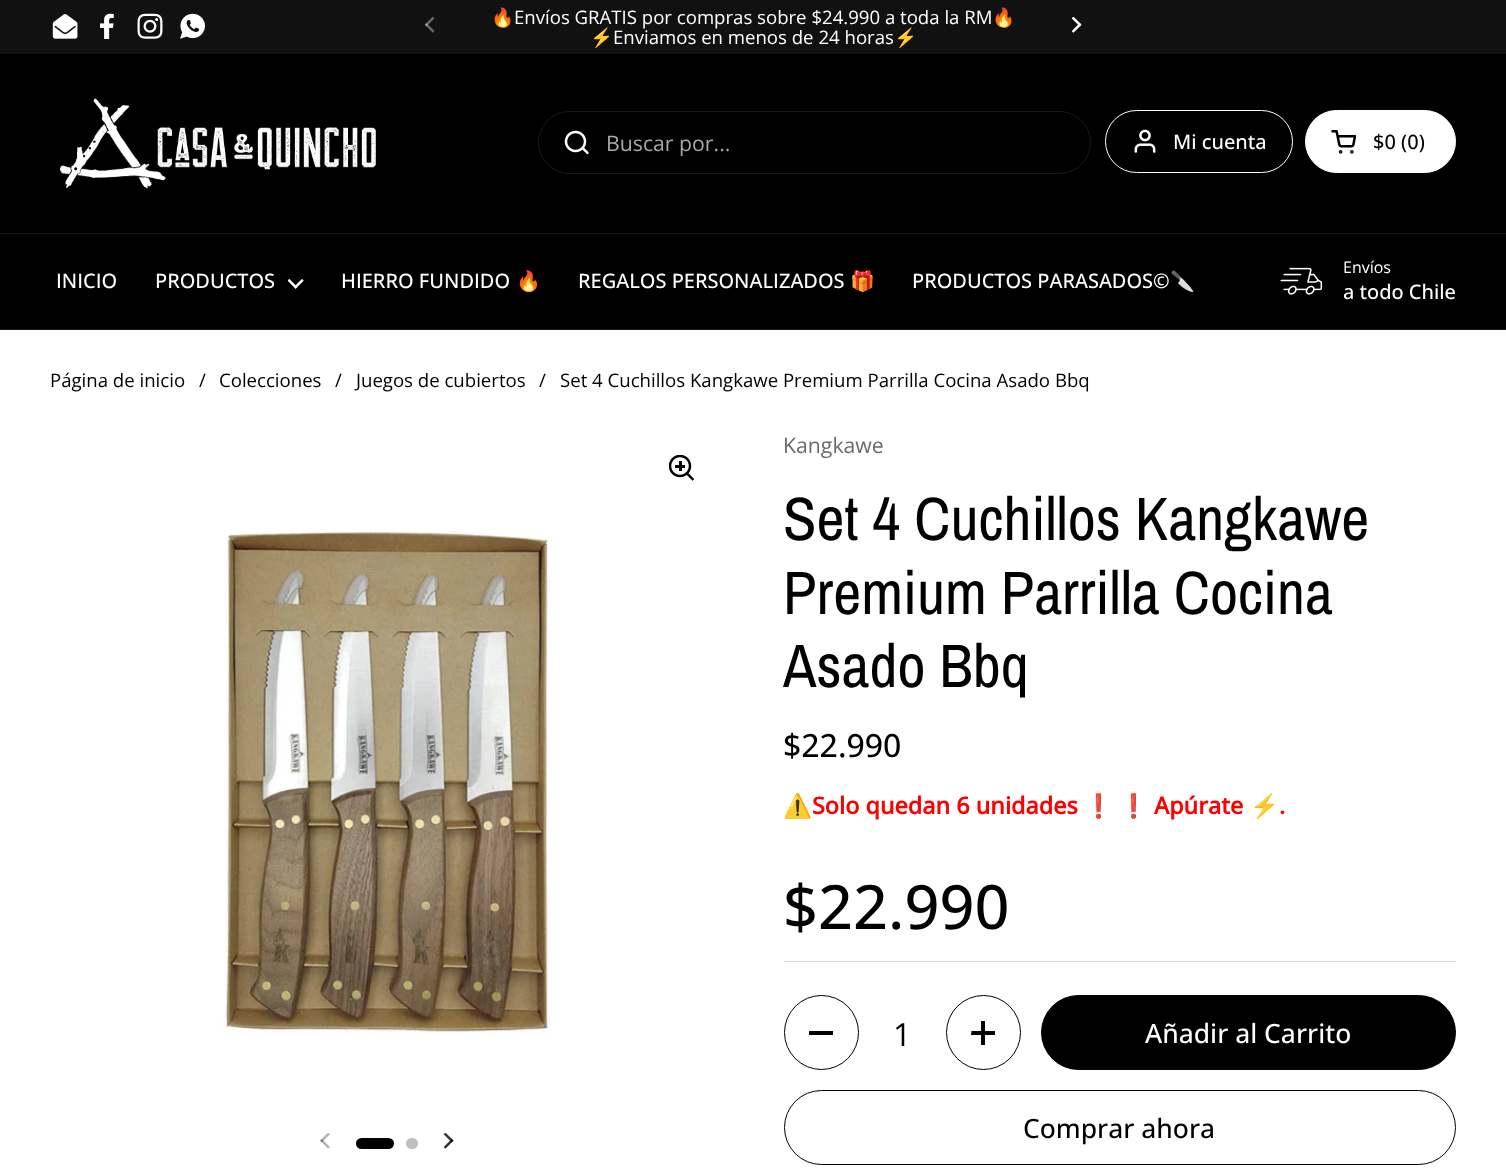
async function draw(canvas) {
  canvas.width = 1506
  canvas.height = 1170
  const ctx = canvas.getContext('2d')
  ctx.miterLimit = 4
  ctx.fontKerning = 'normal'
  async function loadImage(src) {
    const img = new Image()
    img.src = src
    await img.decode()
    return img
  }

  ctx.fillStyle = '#fff'
  ctx.fillRect(0, 0, 1506, 1170)
  ctx.fillStyle = '#111'
  ctx.fillRect(0, 0, 1506, 54)
  ctx.drawImage(await loadImage('image0.png'), 52, 14, 26, 25)
  ctx.drawImage(await loadImage('image1.png'), 100, 13, 14, 26)
  ctx.drawImage(await loadImage('image2.png'), 137, 13, 26, 26)
  ctx.drawImage(await loadImage('image3.png'), 180, 13, 25, 26)
  ctx.drawImage(await loadImage('image4.png'), 425, 17, 10, 16)
  ctx.font = '18.6px Noto Color Emoji'
  ctx.fillStyle = '#fff'
  ctx.fillText('🔥', 491, 24)
  ctx.font = '18.6px Open Sans'
  ctx.fillText('Envíos GRATIS por compras sobre $24.990 a toda la RM', 514, 24)
  ctx.font = '18.6px Noto Color Emoji'
  ctx.fillText('🔥', 992, 24)
  ctx.fillText('⚡', 590, 44)
  ctx.font = '18.6px Open Sans'
  ctx.fillText('Enviamos en menos de 24 horas', 613, 44)
  ctx.font = '18.6px Noto Color Emoji'
  ctx.fillText('⚡', 894, 44)
  ctx.drawImage(await loadImage('image5.png'), 1071, 16, 11, 17)
  ctx.fillStyle = '#000'
  ctx.fillRect(0, 54, 1506, 275)
  ctx.fillStyle = '#1a1a1a'
  ctx.fillRect(0, 233, 1506, 1)
  ctx.drawImage(await loadImage('image6.png'), 60, 98, 316, 91)
  ctx.beginPath()
  ctx.roundRect(538.5, 111.5, 552, 62, 31)
  ctx.strokeStyle = '#1a1a1a'
  ctx.stroke()
  ctx.drawImage(await loadImage('image7.png'), 564, 130, 25, 25)
  ctx.font = '21.25px Open Sans'
  ctx.fillStyle = '#a8a8a8'
  ctx.fillText('Buscar por...', 606, 151)
  ctx.beginPath()
  ctx.roundRect(1105.5, 110.5, 187, 62, 31)
  ctx.strokeStyle = '#fff'
  ctx.stroke()
  ctx.drawImage(await loadImage('image8.png'), 1134, 129, 22, 24)
  ctx.font = '500 20px Open Sans'
  ctx.fillStyle = '#fff'
  ctx.fillText('Mi cuenta', 1173, 149)
  ctx.beginPath()
  ctx.roundRect(1305.5, 110.5, 150, 62, 31)
  ctx.fill()
  ctx.stroke()
  ctx.drawImage(await loadImage('image9.png'), 1331, 130, 25, 24)
  ctx.fillStyle = '#000'
  ctx.fillText('$0 (0)', 1373, 149)
  ctx.fillStyle = '#1a1a1a'
  ctx.fillRect(0, 329, 1506, 1)
  ctx.fillStyle = '#fff'
  ctx.fillText('INICIO', 56, 288)
  ctx.fillText('PRODUCTOS', 155, 288)
  ctx.drawImage(await loadImage('image10.png'), 288, 279, 16, 10)
  ctx.fillText('HIERRO FUNDIDO', 341, 288)
  ctx.font = '20px Noto Color Emoji'
  ctx.fillText('🔥', 516, 288)
  ctx.font = '500 20px Open Sans'
  ctx.fillText('REGALOS PERSONALIZADOS', 578, 288)
  ctx.font = '20px Noto Color Emoji'
  ctx.fillText('🎁', 850, 288)
  ctx.font = '500 20px Open Sans'
  ctx.fillText('PRODUCTOS PARASADOS©', 912, 288)
  ctx.font = '20px Noto Color Emoji'
  ctx.fillText('🔪', 1170, 288)
  ctx.drawImage(await loadImage('image11.png'), 1280, 267, 43, 28)
  ctx.font = '16px Open Sans'
  ctx.fillText('Envíos', 1343, 273)
  ctx.font = '500 20px Open Sans'
  ctx.fillText('a todo Chile', 1343, 299)
  ctx.font = '18.6px Open Sans'
  ctx.fillStyle = '#000'
  ctx.fillText('Página de inicio', 50, 387)
  ctx.fillText('/', 199, 387)
  ctx.fillText('Colecciones', 219, 387)
  ctx.fillText('/', 335, 387)
  ctx.fillText('Juegos de cubiertos', 356, 387)
  ctx.fillText('/', 539, 387)
  ctx.fillText('Set 4 Cuchillos Kangkawe Premium Parrilla Cocina Asado Bbq', 560, 387)
  ctx.drawImage(await loadImage('image12.png'), 669, 455, 26, 26)
  ctx.drawImage(await loadImage('image13.png'), 223, 531, 328, 505)
  ctx.drawImage(await loadImage('image14.png'), 320, 1133, 10, 16)
  ctx.beginPath()
  ctx.roundRect(356, 1138, 38, 11, 5.5)
  ctx.fill()
  ctx.fillStyle = '#bfbfbf'
  ctx.beginPath()
  ctx.roundRect(406, 1138, 12, 11, 5.5)
  ctx.fill()
  ctx.drawImage(await loadImage('image15.png'), 443, 1133, 11, 16)
  ctx.font = '21.25px Open Sans'
  ctx.fillStyle = '#6a6a6a'
  ctx.fillText('Kangkawe', 783, 453)
  ctx.font = '61.25px Archivo Narrow'
  ctx.fillStyle = '#000'
  ctx.fillText('Set 4 Cuchillos Kangkawe', 783, 540)
  ctx.fillText('Premium Parrilla Cocina', 783, 614)
  ctx.fillText('Asado Bbq', 783, 687)
  ctx.font = '500 32px Open Sans'
  ctx.fillText('$22.990', 783, 757)
  ctx.font = 'bold 23.4px Noto Color Emoji'
  ctx.fillStyle = '#f00'
  ctx.fillText('⚠️', 783, 814)
  ctx.font = 'bold 23.4px Open Sans'
  ctx.fillText('Solo quedan 6 unidades', 812, 814)
  ctx.font = 'bold 23.4px Noto Color Emoji'
  ctx.fillText('❗', 1084, 814)
  ctx.fillText('❗', 1119, 814)
  ctx.font = 'bold 23.4px Open Sans'
  ctx.fillText('Apúrate', 1154, 814)
  ctx.font = 'bold 23.4px Noto Color Emoji'
  ctx.fillText('⚡', 1250, 814)
  ctx.font = 'bold 23.4px Open Sans'
  ctx.fillText('.', 1279, 814)
  ctx.font = '500 61.25px Open Sans'
  ctx.fillStyle = '#000'
  ctx.fillText('$22.990', 783, 929)
  ctx.fillStyle = '#d9d9d9'
  ctx.fillRect(784, 961, 672, 1)
  ctx.beginPath()
  ctx.arc(821.5, 1032.5, 37, 0, 2 * Math.PI)
  ctx.strokeStyle = '#000'
  ctx.stroke()
  ctx.fillStyle = '#000'
  ctx.fillRect(809, 1031, 24, 4)
  ctx.font = '32px Open Sans'
  ctx.fillText('1', 893, 1046)
  ctx.beginPath()
  ctx.arc(983.5, 1032.5, 37, 0, 2 * Math.PI)
  ctx.stroke()
  ctx.fillRect(981, 1021, 4, 24)
  ctx.beginPath()
  ctx.moveTo(995, 1031)
  ctx.lineTo(995, 1035)
  ctx.lineTo(971, 1035)
  ctx.lineTo(971.5, 1031)
  ctx.closePath()
  ctx.fill()
  ctx.beginPath()
  ctx.roundRect(1041.5, 995.5, 414, 74, 37)
  ctx.fill()
  ctx.stroke()
  ctx.font = '500 26.5px Open Sans'
  ctx.fillStyle = '#fff'
  ctx.fillText('Añadir al Carrito', 1145, 1043)
  ctx.beginPath()
  ctx.roundRect(784.5, 1090.5, 671, 74, 37)
  ctx.stroke()
  ctx.fillStyle = '#000'
  ctx.fillText('Comprar ahora', 1023, 1138)
}

draw(document.querySelector('canvas'))
